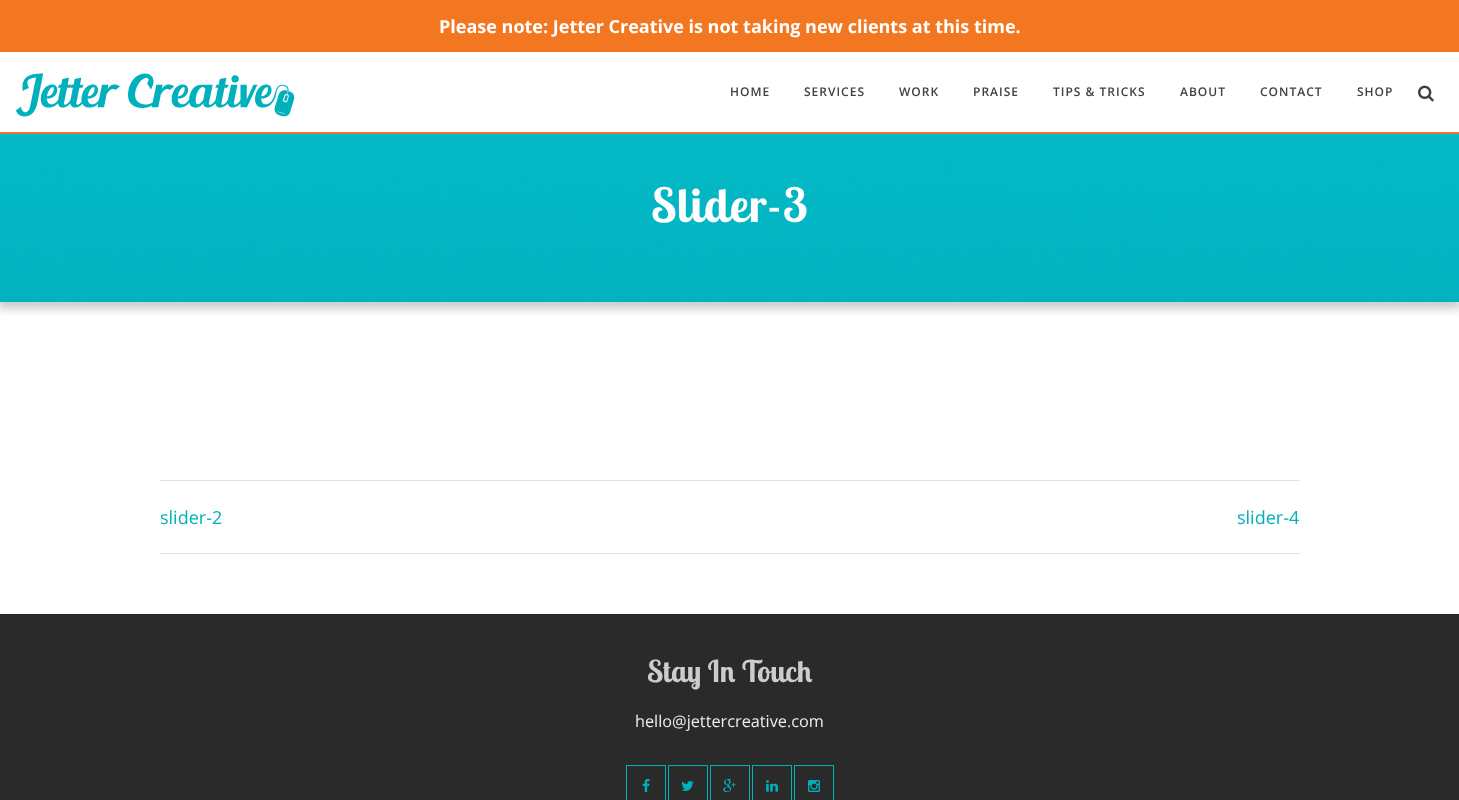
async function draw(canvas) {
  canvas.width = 1459
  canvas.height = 800
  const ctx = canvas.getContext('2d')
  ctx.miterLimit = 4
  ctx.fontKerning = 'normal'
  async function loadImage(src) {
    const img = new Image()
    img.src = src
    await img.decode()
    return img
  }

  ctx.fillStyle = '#fff'
  ctx.fillRect(0, 0, 1459, 800)
  ctx.fillStyle = '#ccc'
  ctx.filter = 'blur(5px)'
  ctx.beginPath()
  ctx.rect(-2, 55, 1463, 254)
  ctx.fill()
  ctx.filter = 'none'
  ctx.fillStyle = '#f37720'
  ctx.fillRect(0, 0, 1459, 52)
  ctx.font = 'bold 18px Open Sans'
  ctx.fillStyle = '#fff'
  ctx.fillText('Please note: Jetter Creative is not taking new clients at this time.', 439, 33)
  ctx.fillRect(0, 52, 1459, 80)
  ctx.fillStyle = '#f37720'
  ctx.fillRect(0, 132, 1459, 2)
  ctx.drawImage(await loadImage('image0.png'), 16, 73, 279, 44)
  ctx.letterSpacing = '1px'
  ctx.font = '600 12px Open Sans'
  ctx.fillStyle = '#404041'
  ctx.fillText('HOME', 730, 96)
  ctx.fillText('SERVICES', 804, 96)
  ctx.fillText('WORK', 899, 96)
  ctx.fillText('PRAISE', 973, 96)
  ctx.fillText('TIPS & TRICKS', 1053, 96)
  ctx.fillText('ABOUT', 1180, 96)
  ctx.fillText('CONTACT', 1260, 96)
  ctx.fillText('SHOP', 1357, 96)
  ctx.drawImage(await loadImage('image1.png'), 1418, 85, 16, 17)
  ctx.drawImage(await loadImage('image2.png'), 0, 134, 1459, 168)
  ctx.font = 'bold 47px Lobster Two'
  ctx.fillStyle = '#fff'
  ctx.fillText('Slider-3', 651, 222)
  ctx.fillStyle = '#e2e2e2'
  ctx.fillRect(160, 480, 1140, 1)
  ctx.fillRect(160, 553, 1140, 1)
  ctx.letterSpacing = '0px'
  ctx.font = '18px Open Sans'
  ctx.fillStyle = '#00b0bd'
  ctx.fillText('slider-2', 160, 524)
  ctx.fillText('slider-4', 1237, 524)
  ctx.fillStyle = '#2a2a2a'
  ctx.fillRect(0, 614, 1459, 186)
  ctx.font = 'bold 30px Lobster Two'
  ctx.fillStyle = '#ccc'
  ctx.fillText('Stay In Touch', 647, 682)
  ctx.font = '16.25px Open Sans'
  ctx.fillStyle = '#eee'
  ctx.fillText('hello@jettercreative.com', 635, 727)
  ctx.strokeStyle = '#00b0bd'
  ctx.strokeRect(626.5, 765.5, 39, 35)
  ctx.drawImage(await loadImage('image3.png'), 642, 779, 8, 13)
  ctx.strokeRect(668.5, 765.5, 39, 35)
  ctx.drawImage(await loadImage('image4.png'), 681, 781, 13, 10)
  ctx.strokeRect(710.5, 765.5, 39, 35)
  ctx.drawImage(await loadImage('image5.png'), 723, 779, 13, 13)
  ctx.strokeRect(752.5, 765.5, 39, 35)
  ctx.drawImage(await loadImage('image6.png'), 766, 780, 12, 12)
  ctx.strokeRect(794.5, 765.5, 39, 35)
  ctx.drawImage(await loadImage('image7.png'), 808, 780, 12, 12)
}

draw(document.querySelector('canvas'))
